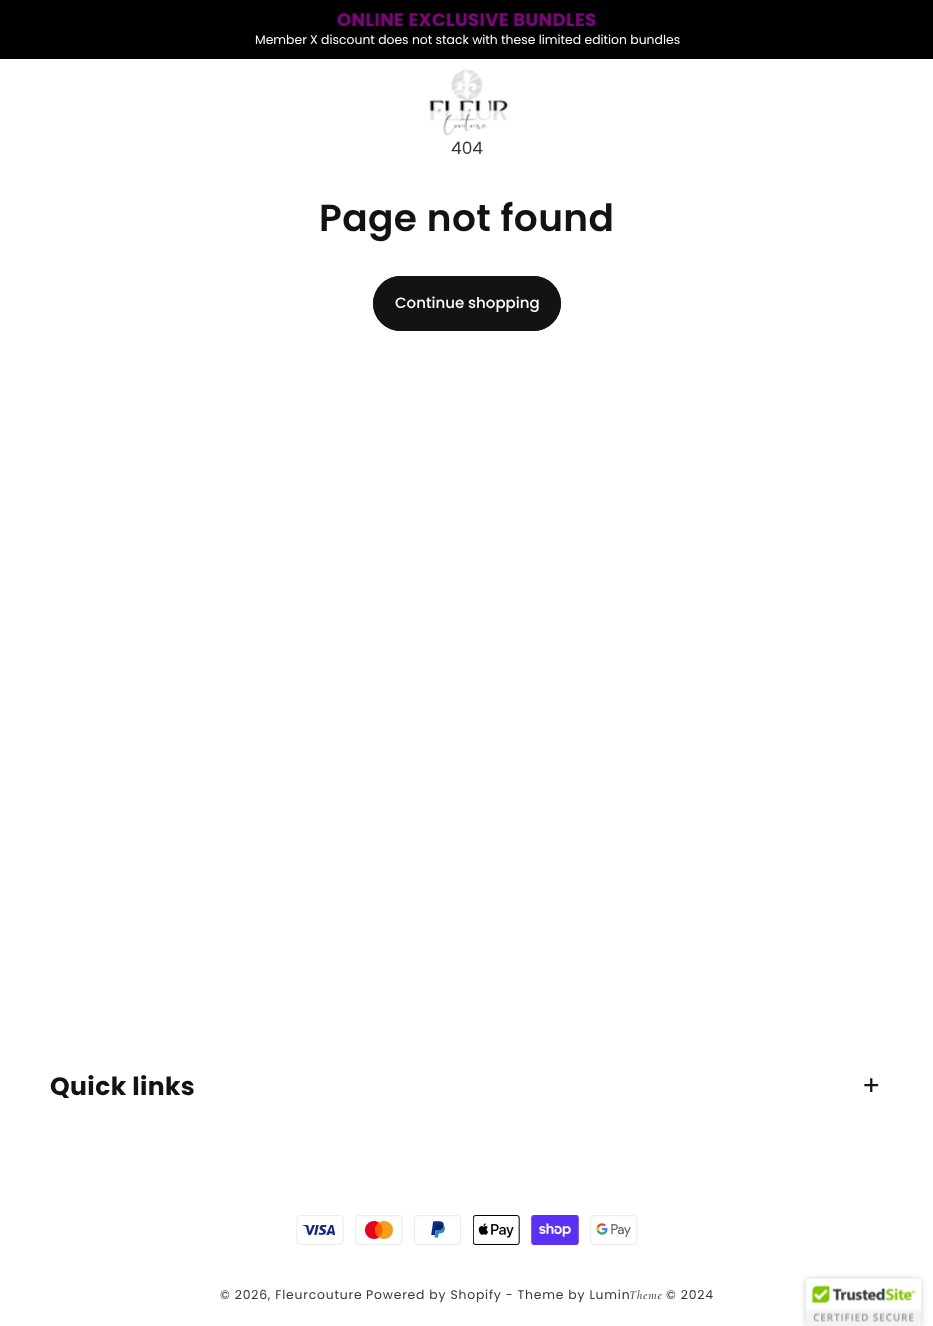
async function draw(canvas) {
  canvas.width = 933
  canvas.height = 1326
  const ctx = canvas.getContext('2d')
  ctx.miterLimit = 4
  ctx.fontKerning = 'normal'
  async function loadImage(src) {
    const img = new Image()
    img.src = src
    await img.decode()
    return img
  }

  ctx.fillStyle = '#fff'
  ctx.fillRect(0, 0, 933, 1326)
  ctx.fillStyle = '#000'
  ctx.fillRect(0, 0, 933, 59)
  ctx.letterSpacing = '0.4px'
  ctx.font = 'bold 18px Poppins'
  ctx.fillStyle = '#800080'
  ctx.fillText('ONLINE EXCLUSIVE BUNDLES', 337, 26)
  ctx.letterSpacing = '0px'
  ctx.font = '12.4px Poppins'
  ctx.fillStyle = '#fff'
  ctx.fillText('Member X discount does not stack with these limited edition bundles', 255, 44)
  ctx.drawImage(await loadImage('image0.png'), 429, 69, 80, 67)
  ctx.font = '17px Poppins'
  ctx.fillStyle = '#363636'
  ctx.fillText('404', 451, 154)
  ctx.letterSpacing = '0.4px'
  ctx.font = '600 37.5px Poppins'
  ctx.fillStyle = '#131313'
  ctx.fillText('Page not found', 319, 231)
  ctx.beginPath()
  ctx.roundRect(373, 276, 188, 55, 27.5)
  ctx.fill()
  ctx.beginPath()
  ctx.roundRect(373.5, 276.5, 187, 54, 27)
  ctx.strokeStyle = '#131313'
  ctx.stroke()
  ctx.letterSpacing = '0px'
  ctx.font = '500 15px Poppins'
  ctx.fillStyle = '#fff'
  ctx.fillText('Continue shopping', 395, 308)
  ctx.letterSpacing = '0.4px'
  ctx.font = 'bold 25px Poppins'
  ctx.fillStyle = '#131313'
  ctx.fillText('Quick links', 50, 1095)
  ctx.font = '27px Poppins'
  ctx.fillText('+', 862, 1095)
  ctx.drawImage(await loadImage('image1.png'), 296, 1215, 48, 30)
  ctx.drawImage(await loadImage('image2.png'), 355, 1215, 48, 30)
  ctx.drawImage(await loadImage('image3.png'), 414, 1215, 47, 30)
  ctx.drawImage(await loadImage('image4.png'), 473, 1215, 47, 30)
  ctx.drawImage(await loadImage('image5.png'), 531, 1215, 48, 30)
  ctx.drawImage(await loadImage('image6.png'), 590, 1215, 48, 30)
  ctx.letterSpacing = '0.8px'
  ctx.font = '12.4px Poppins'
  ctx.fillStyle = '#363636'
  ctx.fillText('© 2026, Fleurcouture', 220, 1299)
  ctx.fillText('Powered by Shopify - Theme by Lumin', 366, 1299)
  ctx.font = 'italic 500 12.4px Cormorant'
  ctx.fillText('Theme', 629, 1299)
  ctx.font = '12.4px Poppins'
  ctx.fillText('© 2024', 666, 1299)
  ctx.fillStyle = '#00000033'
  ctx.filter = 'blur(3px)'
  ctx.beginPath()
  ctx.roundRect(806, 1279, 115, 47, 2.5)
  ctx.fill()
  ctx.filter = 'none'
  ctx.fillStyle = '#fff'
  ctx.beginPath()
  ctx.roundRect(806, 1279, 115, 47, [2.5, 2.5, 0, 0])
  ctx.fill()
  ctx.drawImage(await loadImage('image7.png'), 806, 1278, 116, 48)
}

draw(document.querySelector('canvas'))
